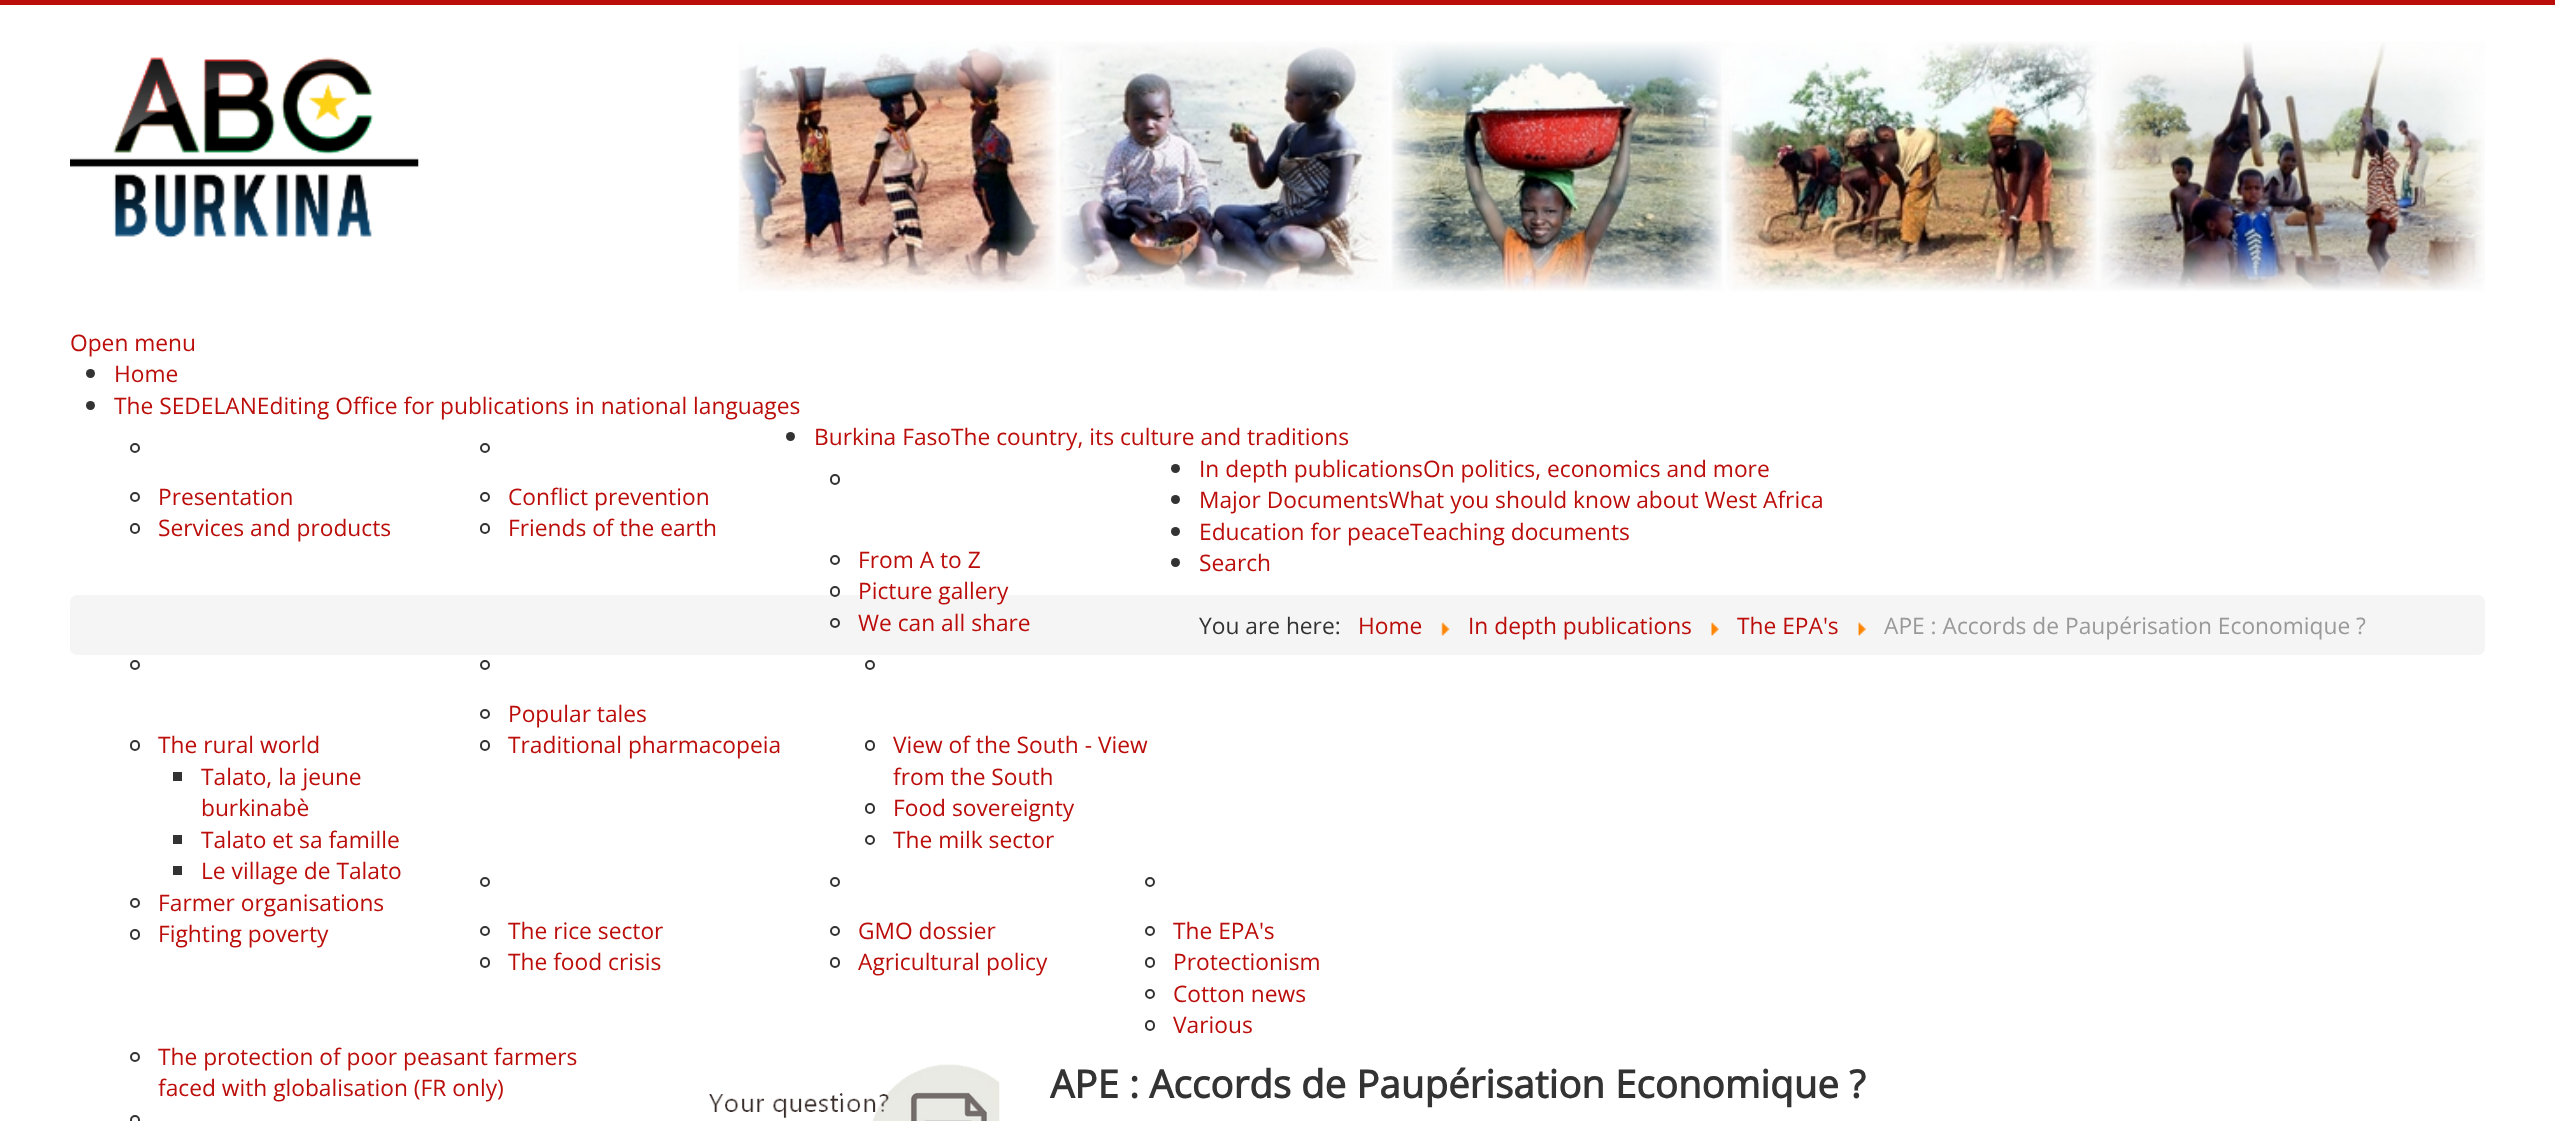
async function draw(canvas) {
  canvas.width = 2555
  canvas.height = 1121
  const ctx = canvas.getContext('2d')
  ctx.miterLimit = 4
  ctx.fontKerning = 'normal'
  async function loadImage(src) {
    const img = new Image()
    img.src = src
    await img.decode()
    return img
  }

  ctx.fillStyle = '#fff'
  ctx.fillRect(0, 0, 2555, 1121)
  ctx.fillStyle = '#bb0e0b'
  ctx.fillRect(0, 0, 2555, 5)
  ctx.drawImage(await loadImage('image0.png'), 70, 57, 349, 181)
  ctx.drawImage(await loadImage('image1.png'), 738, 41, 1747, 251)
  ctx.font = '22.75px Open Sans'
  ctx.fillText('Open menu', 70, 351)
  ctx.fillStyle = '#333'
  ctx.beginPath()
  ctx.arc(90.5, 373.5, 4.5, 0, 2 * Math.PI)
  ctx.fill()
  ctx.fillStyle = '#bb0e0b'
  ctx.fillText('Home', 114, 382)
  ctx.fillStyle = '#333'
  ctx.beginPath()
  ctx.arc(90.5, 405.5, 4.5, 0, 2 * Math.PI)
  ctx.fill()
  ctx.fillStyle = '#bb0e0b'
  ctx.fillText('The SEDELANEditing Office for publications in national languages', 114, 414)
  ctx.beginPath()
  ctx.arc(135, 448, 4, 0, 2 * Math.PI)
  ctx.strokeStyle = '#333'
  ctx.lineWidth = 2
  ctx.stroke()
  ctx.beginPath()
  ctx.arc(135, 497, 4, 0, 2 * Math.PI)
  ctx.stroke()
  ctx.fillText('Presentation', 158, 505)
  ctx.beginPath()
  ctx.roundRect(131, 524, 8, 9, 4)
  ctx.stroke()
  ctx.fillText('Services and products', 158, 536)
  ctx.beginPath()
  ctx.arc(485, 448, 4, 0, 2 * Math.PI)
  ctx.stroke()
  ctx.beginPath()
  ctx.arc(485, 497, 4, 0, 2 * Math.PI)
  ctx.stroke()
  ctx.fillText('Conflict prevention', 508, 505)
  ctx.beginPath()
  ctx.roundRect(481, 524, 8, 9, 4)
  ctx.stroke()
  ctx.fillText('Friends of the earth', 508, 536)
  ctx.fillStyle = '#333'
  ctx.beginPath()
  ctx.arc(790.5, 436.5, 4.5, 0, 2 * Math.PI)
  ctx.fill()
  ctx.fillStyle = '#bb0e0b'
  ctx.fillText('Burkina FasoThe country, its culture and traditions', 814, 445)
  ctx.beginPath()
  ctx.roundRect(831, 475, 8, 9, 4)
  ctx.stroke()
  ctx.beginPath()
  ctx.arc(835, 560, 4, 0, 2 * Math.PI)
  ctx.stroke()
  ctx.fillText('From A to Z', 858, 568)
  ctx.fillStyle = '#f5f5f5'
  ctx.beginPath()
  ctx.roundRect(70, 595, 2415, 60, 7)
  ctx.fill()
  ctx.beginPath()
  ctx.roundRect(831, 587, 8, 9, 4)
  ctx.stroke()
  ctx.fillStyle = '#bb0e0b'
  ctx.fillText('Picture gallery', 858, 599)
  ctx.beginPath()
  ctx.arc(835, 623, 4, 0, 2 * Math.PI)
  ctx.stroke()
  ctx.fillText('We can all share', 858, 631)
  ctx.beginPath()
  ctx.arc(135, 665, 4, 0, 2 * Math.PI)
  ctx.stroke()
  ctx.beginPath()
  ctx.roundRect(131, 741, 8, 9, 4)
  ctx.stroke()
  ctx.fillText('The rural world', 158, 753)
  ctx.fillStyle = '#333'
  ctx.fillRect(173, 772, 9, 9)
  ctx.fillStyle = '#bb0e0b'
  ctx.fillText('Talato, la jeune', 201, 785)
  ctx.fillText('burkinabè', 201, 816)
  ctx.fillStyle = '#333'
  ctx.fillRect(173, 835, 9, 9)
  ctx.fillStyle = '#bb0e0b'
  ctx.fillText('Talato et sa famille', 201, 848)
  ctx.fillStyle = '#333'
  ctx.fillRect(173, 866, 9, 9)
  ctx.fillStyle = '#bb0e0b'
  ctx.fillText('Le village de Talato', 201, 879)
  ctx.beginPath()
  ctx.arc(135, 903, 4, 0, 2 * Math.PI)
  ctx.stroke()
  ctx.fillText('Farmer organisations', 158, 911)
  ctx.beginPath()
  ctx.roundRect(131, 930, 8, 9, 4)
  ctx.stroke()
  ctx.fillText('Fighting poverty', 158, 942)
  ctx.beginPath()
  ctx.arc(485, 665, 4, 0, 2 * Math.PI)
  ctx.stroke()
  ctx.beginPath()
  ctx.arc(485, 714, 4, 0, 2 * Math.PI)
  ctx.stroke()
  ctx.fillText('Popular tales', 508, 722)
  ctx.beginPath()
  ctx.roundRect(481, 741, 8, 9, 4)
  ctx.stroke()
  ctx.fillText('Traditional pharmacopeia', 508, 753)
  ctx.fillStyle = '#333'
  ctx.beginPath()
  ctx.arc(1175.5, 468.5, 4.5, 0, 2 * Math.PI)
  ctx.fill()
  ctx.fillStyle = '#bb0e0b'
  ctx.fillText('In depth publicationsOn politics, economics and more', 1199, 477)
  ctx.beginPath()
  ctx.arc(870, 665, 4, 0, 2 * Math.PI)
  ctx.stroke()
  ctx.beginPath()
  ctx.roundRect(866, 741, 8, 9, 4)
  ctx.stroke()
  ctx.fillText('View of the South - View', 893, 753)
  ctx.fillText('from the South', 893, 785)
  ctx.beginPath()
  ctx.roundRect(866, 804, 8, 9, 4)
  ctx.stroke()
  ctx.fillText('Food sovereignty', 893, 816)
  ctx.beginPath()
  ctx.arc(870, 840, 4, 0, 2 * Math.PI)
  ctx.stroke()
  ctx.fillText('The milk sector', 893, 848)
  ctx.beginPath()
  ctx.arc(485, 882, 4, 0, 2 * Math.PI)
  ctx.stroke()
  ctx.beginPath()
  ctx.arc(485, 931, 4, 0, 2 * Math.PI)
  ctx.stroke()
  ctx.fillText('The rice sector', 508, 939)
  ctx.beginPath()
  ctx.roundRect(481, 958, 8, 9, 4)
  ctx.stroke()
  ctx.fillText('The food crisis', 508, 970)
  ctx.beginPath()
  ctx.arc(835, 882, 4, 0, 2 * Math.PI)
  ctx.stroke()
  ctx.beginPath()
  ctx.arc(835, 931, 4, 0, 2 * Math.PI)
  ctx.stroke()
  ctx.fillText('GMO dossier', 858, 939)
  ctx.beginPath()
  ctx.roundRect(831, 958, 8, 9, 4)
  ctx.stroke()
  ctx.fillText('Agricultural policy', 858, 970)
  ctx.beginPath()
  ctx.arc(1150, 882, 4, 0, 2 * Math.PI)
  ctx.stroke()
  ctx.beginPath()
  ctx.arc(1150, 931, 4, 0, 2 * Math.PI)
  ctx.stroke()
  ctx.fillText('The EPA\'s', 1173, 939)
  ctx.beginPath()
  ctx.roundRect(1146, 958, 8, 9, 4)
  ctx.stroke()
  ctx.fillText('Protectionism', 1173, 970)
  ctx.beginPath()
  ctx.arc(1150, 994, 4, 0, 2 * Math.PI)
  ctx.stroke()
  ctx.fillText('Cotton news', 1173, 1002)
  ctx.beginPath()
  ctx.roundRect(1146, 1021, 8, 9, 4)
  ctx.stroke()
  ctx.fillText('Various', 1173, 1033)
  ctx.fillStyle = '#333'
  ctx.beginPath()
  ctx.arc(1175.5, 499.5, 4.5, 0, 2 * Math.PI)
  ctx.fill()
  ctx.fillStyle = '#bb0e0b'
  ctx.fillText('Major DocumentsWhat you should know about West Africa', 1199, 508)
  ctx.beginPath()
  ctx.arc(135, 1057, 4, 0, 2 * Math.PI)
  ctx.stroke()
  ctx.fillText('The protection of poor peasant farmers', 158, 1065)
  ctx.fillText('faced with globalisation (FR only)', 158, 1096)
  ctx.beginPath()
  ctx.arc(135, 1120, 4, 0, 2 * Math.PI)
  ctx.stroke()
  ctx.fillStyle = '#333'
  ctx.beginPath()
  ctx.arc(1175.5, 531.5, 4.5, 0, 2 * Math.PI)
  ctx.fill()
  ctx.fillStyle = '#bb0e0b'
  ctx.fillText('Education for peaceTeaching documents', 1199, 540)
  ctx.fillStyle = '#333'
  ctx.beginPath()
  ctx.arc(1175.5, 562.5, 4.5, 0, 2 * Math.PI)
  ctx.fill()
  ctx.fillStyle = '#bb0e0b'
  ctx.fillText('Search', 1199, 571)
  ctx.fillStyle = '#333'
  ctx.fillText('You are here:', 1199, 634)
  ctx.fillStyle = '#bb0e0b'
  ctx.fillText('Home', 1358, 634)
  ctx.drawImage(await loadImage('image2.png'), 1441, 622, 9, 14)
  ctx.fillText('In depth publications', 1468, 634)
  ctx.drawImage(await loadImage('image3.png'), 1711, 622, 8, 14)
  ctx.fillText('The EPA\'s', 1737, 634)
  ctx.drawImage(await loadImage('image4.png'), 1858, 622, 8, 14)
  ctx.fillStyle = '#999'
  ctx.fillText('APE : Accords de Paupérisation Economique ?', 1884, 634)
  ctx.drawImage(await loadImage('image5.png'), 709, 1064, 291, 57)
  ctx.font = 'bold 38.5px Open Sans'
  ctx.fillStyle = '#333'
  ctx.fillText('APE : Accords de Paupérisation Economique ?', 1050, 1098)
}

draw(document.querySelector('canvas'))
